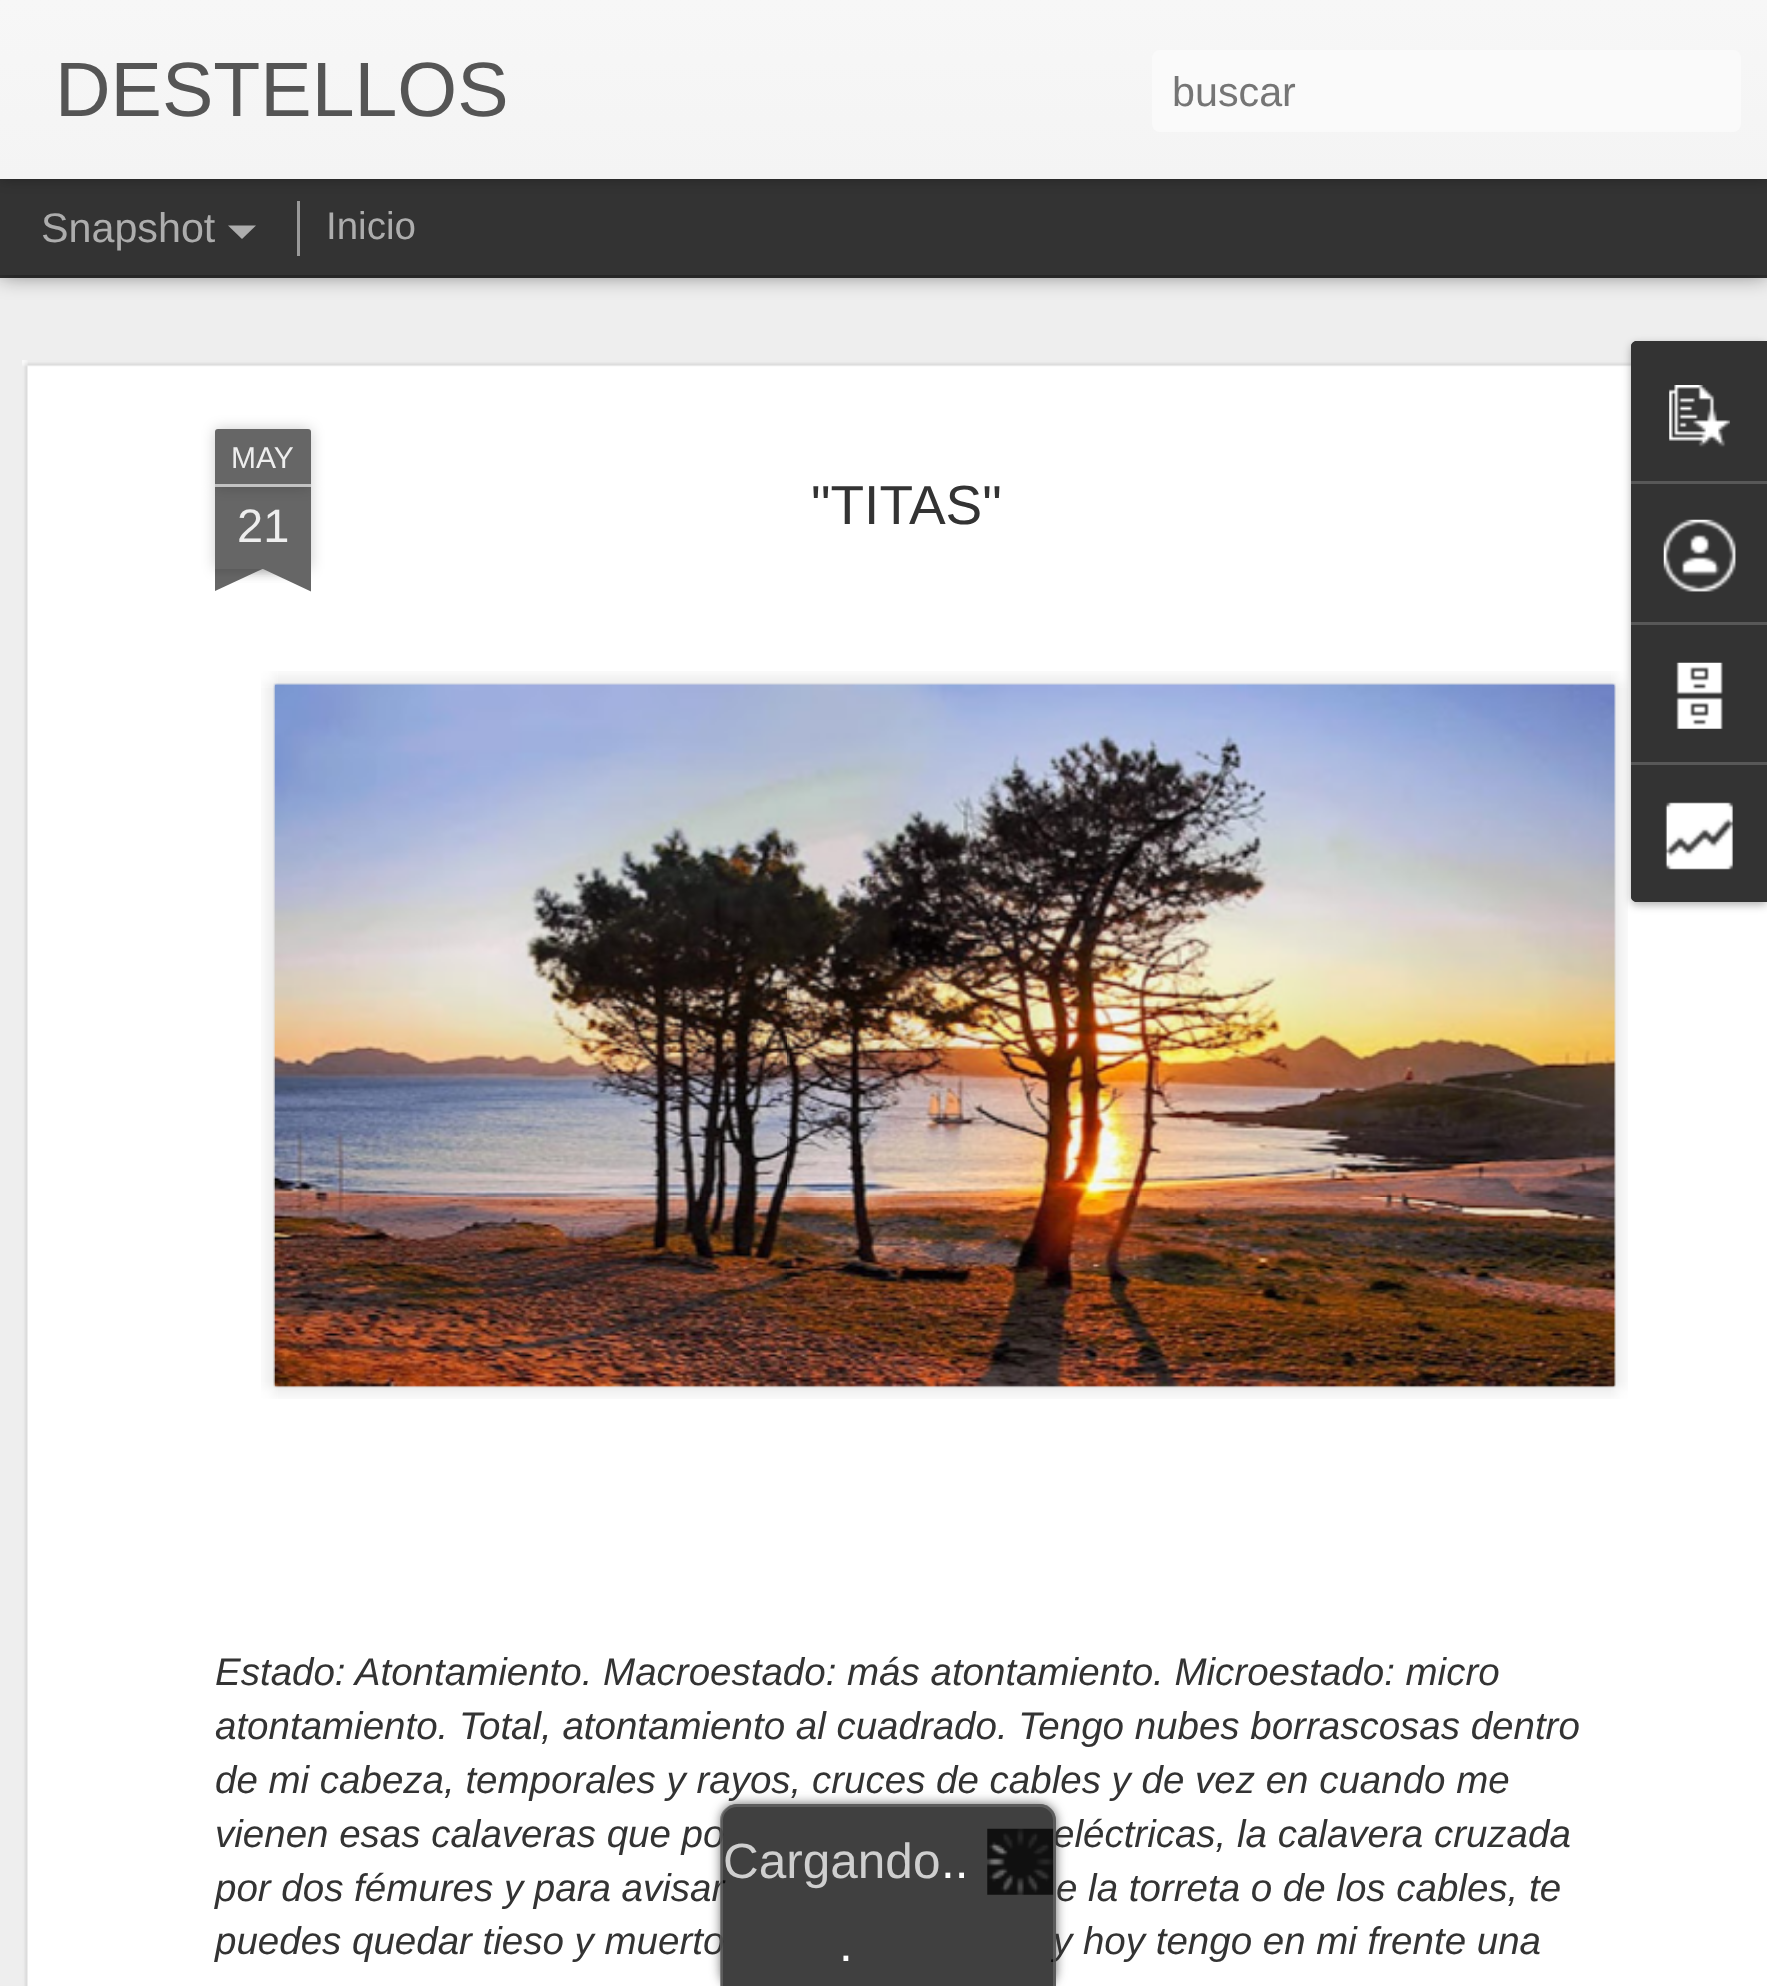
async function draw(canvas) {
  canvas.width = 1767
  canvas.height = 1986
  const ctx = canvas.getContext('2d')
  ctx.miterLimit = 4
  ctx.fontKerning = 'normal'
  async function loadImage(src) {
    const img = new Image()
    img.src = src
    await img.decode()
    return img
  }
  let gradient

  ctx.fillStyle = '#333'
  ctx.fillRect(0, 0, 1767, 1986)
  ctx.fillStyle = '#eee'
  ctx.fillRect(0, 278, 1767, 1708)
  ctx.fillStyle = '#00000080'
  ctx.filter = 'blur(11px)'
  ctx.beginPath()
  ctx.rect(0, 179, 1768, 96)
  ctx.fill()
  ctx.filter = 'none'
  ctx.fillStyle = '#333'
  ctx.fillRect(0, 179, 1767, 96)
  ctx.fillStyle = '#0000004d'
  ctx.filter = 'blur(7px)'
  ctx.beginPath()
  ctx.rect(0, 0, 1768, 179)
  ctx.fill()
  ctx.filter = 'none'
  gradient = ctx.createLinearGradient(0, 0, 0, 179)
  gradient.addColorStop(0, '#f7f7f7')
  gradient.addColorStop(1, '#f4f4f4')
  ctx.fillStyle = gradient
  ctx.fillRect(0, 0, 1767, 179)
  ctx.font = '77px Liberation Sans'
  ctx.fillStyle = '#555'
  ctx.fillText('DESTELLOS', 55, 116)
  ctx.fillStyle = '#fafafa'
  ctx.beginPath()
  ctx.roundRect(1152, 50, 589, 82, 8)
  ctx.fill()
  ctx.font = '41.25px Liberation Sans'
  ctx.fillStyle = '#757575'
  ctx.fillText('buscar', 1172, 106)
  ctx.fillStyle = '#adadad'
  ctx.fillText('Snapshot', 41, 242)
  ctx.beginPath()
  ctx.moveTo(228, 225.5)
  ctx.lineTo(256, 225.5)
  ctx.lineTo(242, 239)
  ctx.closePath()
  ctx.fill()
  ctx.fillStyle = '#999'
  ctx.fillRect(297, 201, 3, 55)
  ctx.font = '38.5px Liberation Sans'
  ctx.fillStyle = '#adadad'
  ctx.fillText('Inicio', 326, 239)
  ctx.fillStyle = '#fff'
  ctx.fillRect(22, 360, 1745, 1626)
  ctx.drawImage(await loadImage('image0.png'), 22, 360, 1609, 1626)
  ctx.fillStyle = '#00000033'
  ctx.filter = 'blur(7px)'
  ctx.beginPath()
  ctx.rect(215, 487, 96, 82)
  ctx.fill()
  ctx.filter = 'none'
  ctx.fillStyle = '#666'
  ctx.fillRect(215, 487, 96, 82)
  ctx.fillStyle = '#00000033'
  ctx.filter = 'blur(7px)'
  ctx.beginPath()
  ctx.roundRect(215, 429, 96, 58, 3)
  ctx.fill()
  ctx.filter = 'none'
  ctx.fillStyle = '#666'
  ctx.beginPath()
  ctx.roundRect(215, 429, 96, 58, [3, 3, 0, 0])
  ctx.fill()
  ctx.fillStyle = '#c2c2c2'
  ctx.fillRect(215, 484, 96, 3)
  ctx.font = '30px Liberation Sans'
  ctx.fillStyle = '#eee'
  ctx.fillText('MAY', 231, 468)
  ctx.font = '47px Liberation Sans'
  ctx.fillText('21', 237, 542)
  ctx.save()
  ctx.beginPath()
  ctx.rect(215, 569, 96, 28)
  ctx.clip()
  ctx.fillStyle = '#00000033'
  ctx.filter = 'blur(7px)'
  ctx.beginPath()
  ctx.rect(190, 542, 137, 27)
  ctx.fill()
  ctx.filter = 'none'
  ctx.restore()
  ctx.save()
  ctx.beginPath()
  ctx.rect(215, 569, 96, 28)
  ctx.clip()
  ctx.fillStyle = '#666'
  ctx.beginPath()
  ctx.moveTo(190, 572)
  ctx.lineTo(315, 514)
  ctx.lineTo(327, 539)
  ctx.lineTo(202, 597)
  ctx.closePath()
  ctx.fill()
  ctx.restore()
  ctx.save()
  ctx.beginPath()
  ctx.rect(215, 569, 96, 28)
  ctx.clip()
  ctx.fillStyle = '#00000033'
  ctx.filter = 'blur(7px)'
  ctx.beginPath()
  ctx.rect(198, 542, 138, 27)
  ctx.fill()
  ctx.filter = 'none'
  ctx.restore()
  ctx.save()
  ctx.beginPath()
  ctx.rect(215, 569, 96, 28)
  ctx.clip()
  ctx.fillStyle = '#666'
  ctx.beginPath()
  ctx.moveTo(210, 514)
  ctx.lineTo(335, 572)
  ctx.lineTo(323, 597)
  ctx.lineTo(199, 539)
  ctx.closePath()
  ctx.fill()
  ctx.restore()
  ctx.font = '55px Liberation Sans'
  ctx.fillStyle = '#333'
  ctx.fillText('"TITAS"', 811, 524)
  ctx.drawImage(await loadImage('image1.png'), 261, 671, 1367, 728)
  ctx.drawImage(await loadImage('image2.png'), 273, 683, 1343, 705)
  ctx.font = 'italic 38.5px Liberation Sans'
  ctx.fillText('Estado: Atontamiento. Macroestado: más atontamiento. Microestado: micro', 215, 1685)
  ctx.fillText('atontamiento. Total, atontamiento al cuadrado. Tengo nubes borrascosas dentro', 215, 1739)
  ctx.fillText('de mi cabeza, temporales y rayos, cruces de cables y de vez en cuando me', 215, 1793)
  ctx.fillText('vienen esas calaveras que po', 215, 1847)
  ctx.fillText('eléctricas, la calavera cruzada', 1053, 1847)
  ctx.fillText('por dos fémures y para avisar', 215, 1901)
  ctx.fillText('e la torreta o de los cables, te', 1056, 1901)
  ctx.fillText('puedes quedar tieso y muerto', 215, 1954)
  ctx.fillText('y hoy tengo en mi frente una', 1053, 1954)
  ctx.fillStyle = '#0000004d'
  ctx.filter = 'blur(4px)'
  ctx.beginPath()
  ctx.roundRect(1631, 344, 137, 561, 6)
  ctx.fill()
  ctx.filter = 'none'
  ctx.fillStyle = '#333'
  ctx.beginPath()
  ctx.moveTo(1637, 341)
  ctx.lineTo(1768, 341)
  ctx.lineTo(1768, 902)
  ctx.lineTo(1637, 902)
  ctx.bezierCurveTo(1633.5, 902, 1631, 899.5, 1631, 896)
  ctx.lineTo(1631, 347)
  ctx.bezierCurveTo(1631, 343.5, 1633.5, 341, 1637, 341)
  ctx.closePath()
  ctx.fill()
  ctx.beginPath()
  ctx.moveTo(1637, 341)
  ctx.lineTo(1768, 341)
  ctx.lineTo(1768, 481)
  ctx.lineTo(1631, 481)
  ctx.lineTo(1631, 347)
  ctx.bezierCurveTo(1631, 343.5, 1633.5, 341, 1637, 341)
  ctx.closePath()
  ctx.fill()
  ctx.drawImage(await loadImage('image3.png'), 1669, 385, 61, 62)
  ctx.fillStyle = '#585858'
  ctx.fillRect(1631, 481, 136, 3)
  ctx.drawImage(await loadImage('image4.png'), 1663, 519, 73, 73)
  ctx.fillRect(1631, 622, 136, 3)
  ctx.drawImage(await loadImage('image5.png'), 1676, 662, 47, 67)
  ctx.fillStyle = '#333'
  ctx.beginPath()
  ctx.moveTo(1631, 762)
  ctx.lineTo(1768, 762)
  ctx.lineTo(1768, 902)
  ctx.lineTo(1637, 902)
  ctx.bezierCurveTo(1633.5, 902, 1631, 899.5, 1631, 896)
  ctx.closePath()
  ctx.fill()
  ctx.fillStyle = '#585858'
  ctx.fillRect(1631, 762, 136, 3)
  ctx.drawImage(await loadImage('image6.png'), 1665, 802, 68, 68)
  ctx.save()
  ctx.beginPath()
  ctx.moveTo(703, 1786)
  ctx.lineTo(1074, 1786)
  ctx.lineTo(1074, 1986)
  ctx.lineTo(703, 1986)
  ctx.closePath()
  ctx.moveTo(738, 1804)
  ctx.lineTo(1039, 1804)
  ctx.bezierCurveTo(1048.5, 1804, 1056, 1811.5, 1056, 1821)
  ctx.lineTo(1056, 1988)
  ctx.lineTo(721, 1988)
  ctx.lineTo(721, 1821)
  ctx.bezierCurveTo(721, 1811.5, 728.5, 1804, 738, 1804)
  ctx.closePath()
  ctx.clip('evenodd')
  ctx.fillStyle = '#333333bf'
  ctx.filter = 'blur(5.5px)'
  ctx.beginPath()
  ctx.roundRect(721, 1804, 335, 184, 17)
  ctx.fill()
  ctx.filter = 'none'
  ctx.restore()
  ctx.fillStyle = '#000000bf'
  ctx.beginPath()
  ctx.moveTo(738, 1804)
  ctx.lineTo(1039, 1804)
  ctx.bezierCurveTo(1048.5, 1804, 1056, 1811.5, 1056, 1821)
  ctx.lineTo(1056, 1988)
  ctx.lineTo(721, 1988)
  ctx.lineTo(721, 1821)
  ctx.bezierCurveTo(721, 1811.5, 728.5, 1804, 738, 1804)
  ctx.closePath()
  ctx.fill()
  ctx.fillStyle = '#666666bf'
  ctx.beginPath()
  ctx.moveTo(737, 1804)
  ctx.lineTo(1040, 1804)
  ctx.bezierCurveTo(1049, 1804, 1056, 1811, 1056, 1820)
  ctx.lineTo(1056, 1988)
  ctx.lineTo(720, 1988)
  ctx.lineTo(720, 1820)
  ctx.bezierCurveTo(720, 1811, 728, 1804, 737, 1804)
  ctx.closePath()
  ctx.moveTo(737, 1807)
  ctx.lineTo(1040, 1807)
  ctx.bezierCurveTo(1047, 1807, 1053, 1813, 1053, 1820)
  ctx.lineTo(1053, 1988)
  ctx.lineTo(723, 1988)
  ctx.lineTo(723, 1820)
  ctx.bezierCurveTo(723, 1813, 729, 1807, 737, 1807)
  ctx.closePath()
  ctx.fill('evenodd')
  ctx.drawImage(await loadImage('image7.png'), 987, 1828, 67, 67)
  ctx.font = '49.5px Liberation Sans'
  ctx.fillStyle = '#cfcfcf'
  ctx.fillText('Cargando', 723, 1878)
  ctx.fillStyle = '#fff'
  ctx.fillText('..', 941, 1878)
  ctx.fillText('.', 839, 1961)
}

draw(document.querySelector('canvas'))
